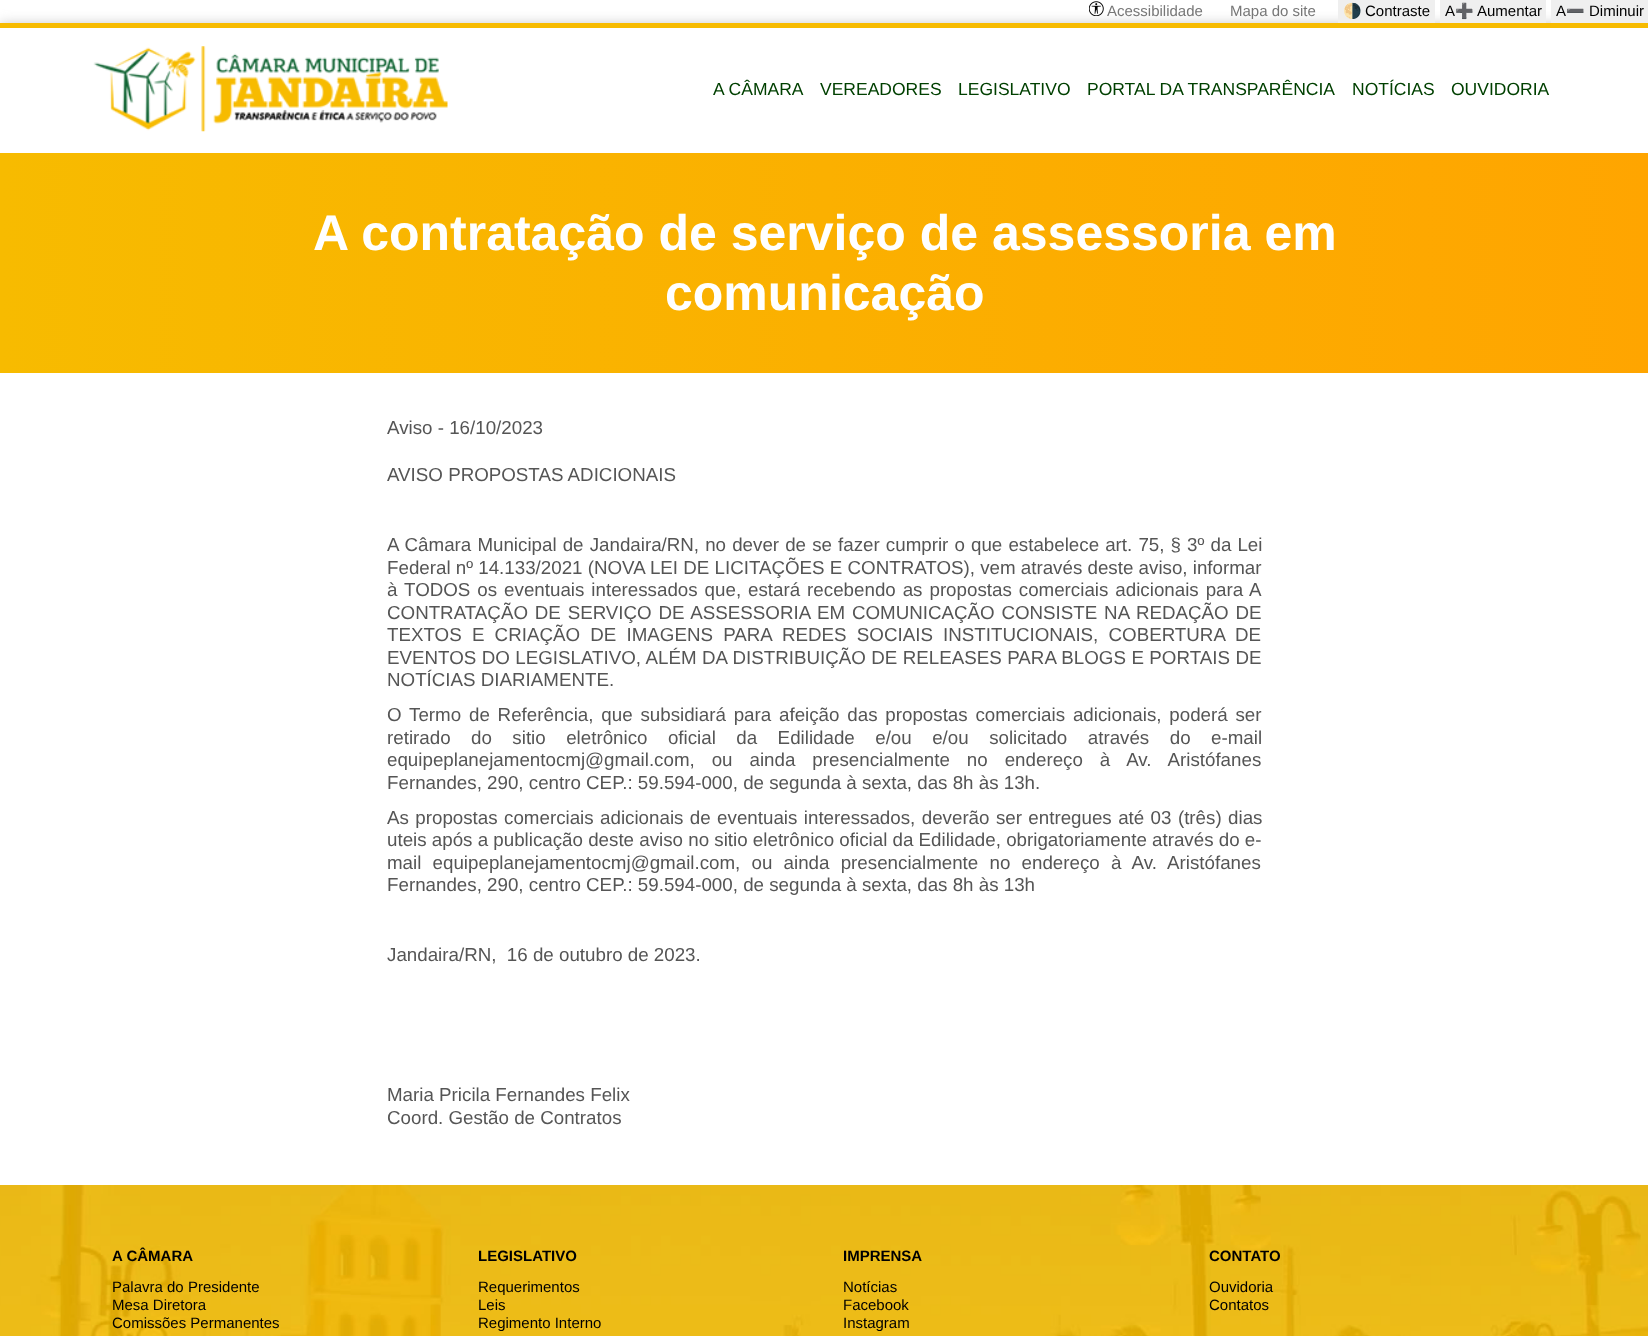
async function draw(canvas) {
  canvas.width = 1648
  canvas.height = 1336
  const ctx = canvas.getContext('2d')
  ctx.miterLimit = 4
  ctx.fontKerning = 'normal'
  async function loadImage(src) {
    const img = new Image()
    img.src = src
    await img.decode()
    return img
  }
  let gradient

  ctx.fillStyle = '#fff'
  ctx.fillRect(0, 0, 1648, 1336)
  ctx.fillStyle = '#ccc'
  ctx.filter = 'blur(6px)'
  ctx.beginPath()
  ctx.rect(0, 23, 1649, 130)
  ctx.fill()
  ctx.filter = 'none'
  ctx.drawImage(await loadImage('image0.png'), 1089, 1, 15, 15)
  ctx.font = '15px Liberation Sans'
  ctx.fillStyle = '#777'
  ctx.fillText('Acessibilidade', 1107, 16)
  ctx.fillText('Mapa do site', 1230, 16)
  ctx.fillStyle = '#efefef'
  ctx.fillRect(1338, 0, 97, 23)
  ctx.font = '15px Noto Color Emoji'
  ctx.fillStyle = '#000'
  ctx.fillText('🌗', 1343, 16)
  ctx.font = '15px Liberation Sans'
  ctx.fillText('Contraste', 1365, 16)
  ctx.fillStyle = '#efefef'
  ctx.fillRect(1440, 0, 106, 23)
  ctx.fillStyle = '#000'
  ctx.fillText('A', 1445, 16)
  ctx.font = '15px Noto Color Emoji'
  ctx.fillText('➕', 1455, 16)
  ctx.font = '15px Liberation Sans'
  ctx.fillText('Aumentar', 1477, 16)
  ctx.fillStyle = '#efefef'
  ctx.fillRect(1551, 0, 97, 23)
  ctx.fillStyle = '#000'
  ctx.fillText('A', 1556, 16)
  ctx.font = '15px Noto Color Emoji'
  ctx.fillText('➖', 1566, 16)
  ctx.font = '15px Liberation Sans'
  ctx.fillText('Diminuir', 1589, 16)
  ctx.fillStyle = '#fff'
  ctx.fillRect(0, 28, 1648, 125)
  ctx.fillStyle = '#f7bb00'
  ctx.fillRect(0, 23, 1648, 5)
  ctx.drawImage(await loadImage('image1.png'), 93, 46, 355, 86)
  ctx.font = '17.5px Liberation Sans'
  ctx.fillStyle = '#004000'
  ctx.fillText('A CÂMARA', 713, 95)
  ctx.fillText('VEREADORES', 820, 95)
  ctx.fillText('LEGISLATIVO', 958, 95)
  ctx.fillText('PORTAL DA TRANSPARÊNCIA', 1087, 95)
  ctx.fillText('NOTÍCIAS', 1352, 95)
  ctx.fillText('OUVIDORIA', 1451, 95)
  gradient = ctx.createLinearGradient(0, 263, 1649, 262)
  gradient.addColorStop(0, '#f7bb00')
  gradient.addColorStop(1, '#ffa500')
  ctx.fillStyle = gradient
  ctx.fillRect(0, 153, 1648, 220)
  ctx.font = 'bold 50px Liberation Sans'
  ctx.fillStyle = '#fff'
  ctx.fillText('A contratação de serviço de assessoria em', 313, 250)
  ctx.fillText('comunicação', 665, 310)
  ctx.font = '18.75px Liberation Sans'
  ctx.fillStyle = '#555'
  ctx.fillText('Aviso - 16/10/2023', 387, 434)
  ctx.fillText('AVISO PROPOSTAS ADICIONAIS', 387, 481)
  ctx.wordSpacing = '0.9px'
  ctx.fillText('A Câmara Municipal de Jandaira/RN, no dever de se fazer cumprir o que estabelece art. 75, § 3º da Lei', 387, 551)
  ctx.wordSpacing = '0px'
  ctx.fillText('Federal nº 14.133/2021 (NOVA LEI DE LICITAÇÕES E CONTRATOS), vem através deste aviso, informar', 387, 574)
  ctx.wordSpacing = '1.75px'
  ctx.fillText('à TODOS os eventuais interessados que, estará recebendo as propostas comerciais adicionais para A', 387, 596)
  ctx.wordSpacing = '1.6px'
  ctx.fillText('CONTRATAÇÃO DE SERVIÇO DE ASSESSORIA EM COMUNICAÇÃO CONSISTE NA REDAÇÃO DE', 387, 619)
  ctx.wordSpacing = '5px'
  ctx.fillText('TEXTOS E CRIAÇÃO DE IMAGENS PARA REDES SOCIAIS INSTITUCIONAIS, COBERTURA DE', 387, 641)
  ctx.wordSpacing = '0.25px'
  ctx.fillText('EVENTOS DO LEGISLATIVO, ALÉM DA DISTRIBUIÇÃO DE RELEASES PARA BLOGS E PORTAIS DE', 387, 664)
  ctx.wordSpacing = '0px'
  ctx.fillText('NOTÍCIAS DIARIAMENTE.', 387, 686)
  ctx.wordSpacing = '2.6px'
  ctx.fillText('O Termo de Referência, que subsidiará para afeição das propostas comerciais adicionais, poderá ser', 387, 721)
  ctx.wordSpacing = '15.25px'
  ctx.fillText('retirado do sitio eletrônico oficial da Edilidade e/ou e/ou solicitado através do e-mail', 387, 744)
  ctx.wordSpacing = '11.75px'
  ctx.fillText('equipeplanejamentocmj@gmail.com, ou ainda presencialmente no endereço à Av. Aristófanes', 387, 766)
  ctx.wordSpacing = '0px'
  ctx.fillText('Fernandes, 290, centro CEP.: 59.594-000, de segunda à sexta, das 8h às 13h.', 387, 789)
  ctx.wordSpacing = '1.2px'
  ctx.fillText('As propostas comerciais adicionais de eventuais interessados, deverão ser entregues até 03 (três) dias', 387, 824)
  ctx.wordSpacing = '0px'
  ctx.fillText('uteis após a publicação deste aviso no sitio eletrônico oficial da Edilidade, obrigatoriamente através do e-', 387, 846)
  ctx.wordSpacing = '6px'
  ctx.fillText('mail equipeplanejamentocmj@gmail.com, ou ainda presencialmente no endereço à Av. Aristófanes', 387, 869)
  ctx.wordSpacing = '0px'
  ctx.fillText('Fernandes, 290, centro CEP.: 59.594-000, de segunda à sexta, das 8h às 13h', 387, 891)
  ctx.fillText('Jandaira/RN,  16 de outubro de 2023.', 387, 961)
  ctx.fillText('Maria Pricila Fernandes Felix', 387, 1101)
  ctx.fillText('Coord. Gestão de Contratos', 387, 1124)
  ctx.drawImage(await loadImage('image2.png'), 0, 1185, 1648, 151)
  ctx.font = 'bold 15px Liberation Sans'
  ctx.fillStyle = '#000'
  ctx.fillText('A CÂMARA', 112, 1261)
  ctx.font = '15px Liberation Sans'
  ctx.fillText('Palavra do Presidente', 112, 1292)
  ctx.fillText('Mesa Diretora', 112, 1310)
  ctx.fillText('Comissões Permanentes', 112, 1328)
  ctx.font = 'bold 15px Liberation Sans'
  ctx.fillText('LEGISLATIVO', 478, 1261)
  ctx.font = '15px Liberation Sans'
  ctx.fillText('Requerimentos', 478, 1292)
  ctx.fillText('Leis', 478, 1310)
  ctx.fillText('Regimento Interno', 478, 1328)
  ctx.font = 'bold 15px Liberation Sans'
  ctx.fillText('IMPRENSA', 843, 1261)
  ctx.font = '15px Liberation Sans'
  ctx.fillText('Notícias', 843, 1292)
  ctx.fillText('Facebook', 843, 1310)
  ctx.fillText('Instagram', 843, 1328)
  ctx.font = 'bold 15px Liberation Sans'
  ctx.fillText('CONTATO', 1209, 1261)
  ctx.font = '15px Liberation Sans'
  ctx.fillText('Ouvidoria', 1209, 1292)
  ctx.fillText('Contatos', 1209, 1310)
}

draw(document.querySelector('canvas'))
